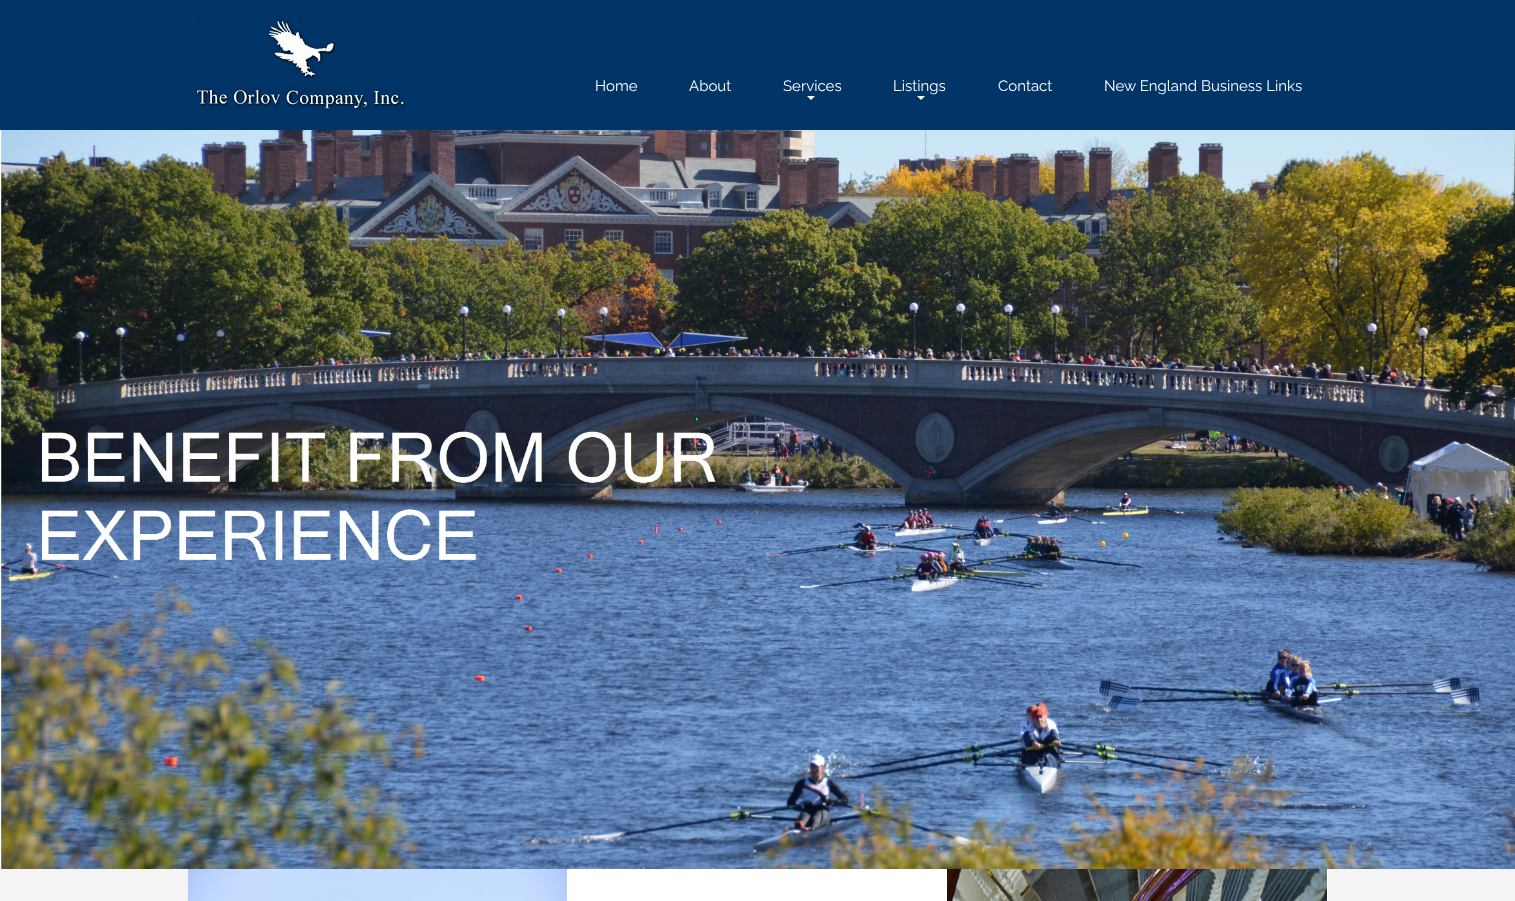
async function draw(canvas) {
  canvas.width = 1515
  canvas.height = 901
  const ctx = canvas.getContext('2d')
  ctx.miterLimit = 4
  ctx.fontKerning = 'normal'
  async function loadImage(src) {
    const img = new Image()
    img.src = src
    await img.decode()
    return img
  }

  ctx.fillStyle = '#013567'
  ctx.fillRect(0, 0, 1515, 901)
  ctx.drawImage(await loadImage('image0.png'), 193, 15, 214, 96)
  ctx.font = '15px Raleway'
  ctx.fillStyle = '#fff'
  ctx.fillText('Home', 595, 91)
  ctx.fillText('About', 689, 91)
  ctx.fillText('Services', 783, 91)
  ctx.beginPath()
  ctx.moveTo(807, 96)
  ctx.lineTo(815, 96)
  ctx.lineTo(811, 100)
  ctx.closePath()
  ctx.fill()
  ctx.fillText('Listings', 893, 91)
  ctx.beginPath()
  ctx.moveTo(917, 96)
  ctx.lineTo(925, 96)
  ctx.lineTo(921, 100)
  ctx.closePath()
  ctx.fill()
  ctx.fillText('Contact', 998, 91)
  ctx.fillText('New England Business Links', 1104, 91)
  ctx.drawImage(await loadImage('image1.png'), 0, 130, 1515, 739)
  ctx.fillStyle = '#f4f4f4'
  ctx.fillRect(0, 869, 1515, 32)
  ctx.fillStyle = '#fff'
  ctx.fillRect(567, 869, 761, 32)
  ctx.drawImage(await loadImage('image2.png'), 188, 869, 379, 32)
  ctx.drawImage(await loadImage('image3.png'), 947, 869, 380, 32)
}

draw(document.querySelector('canvas'))
